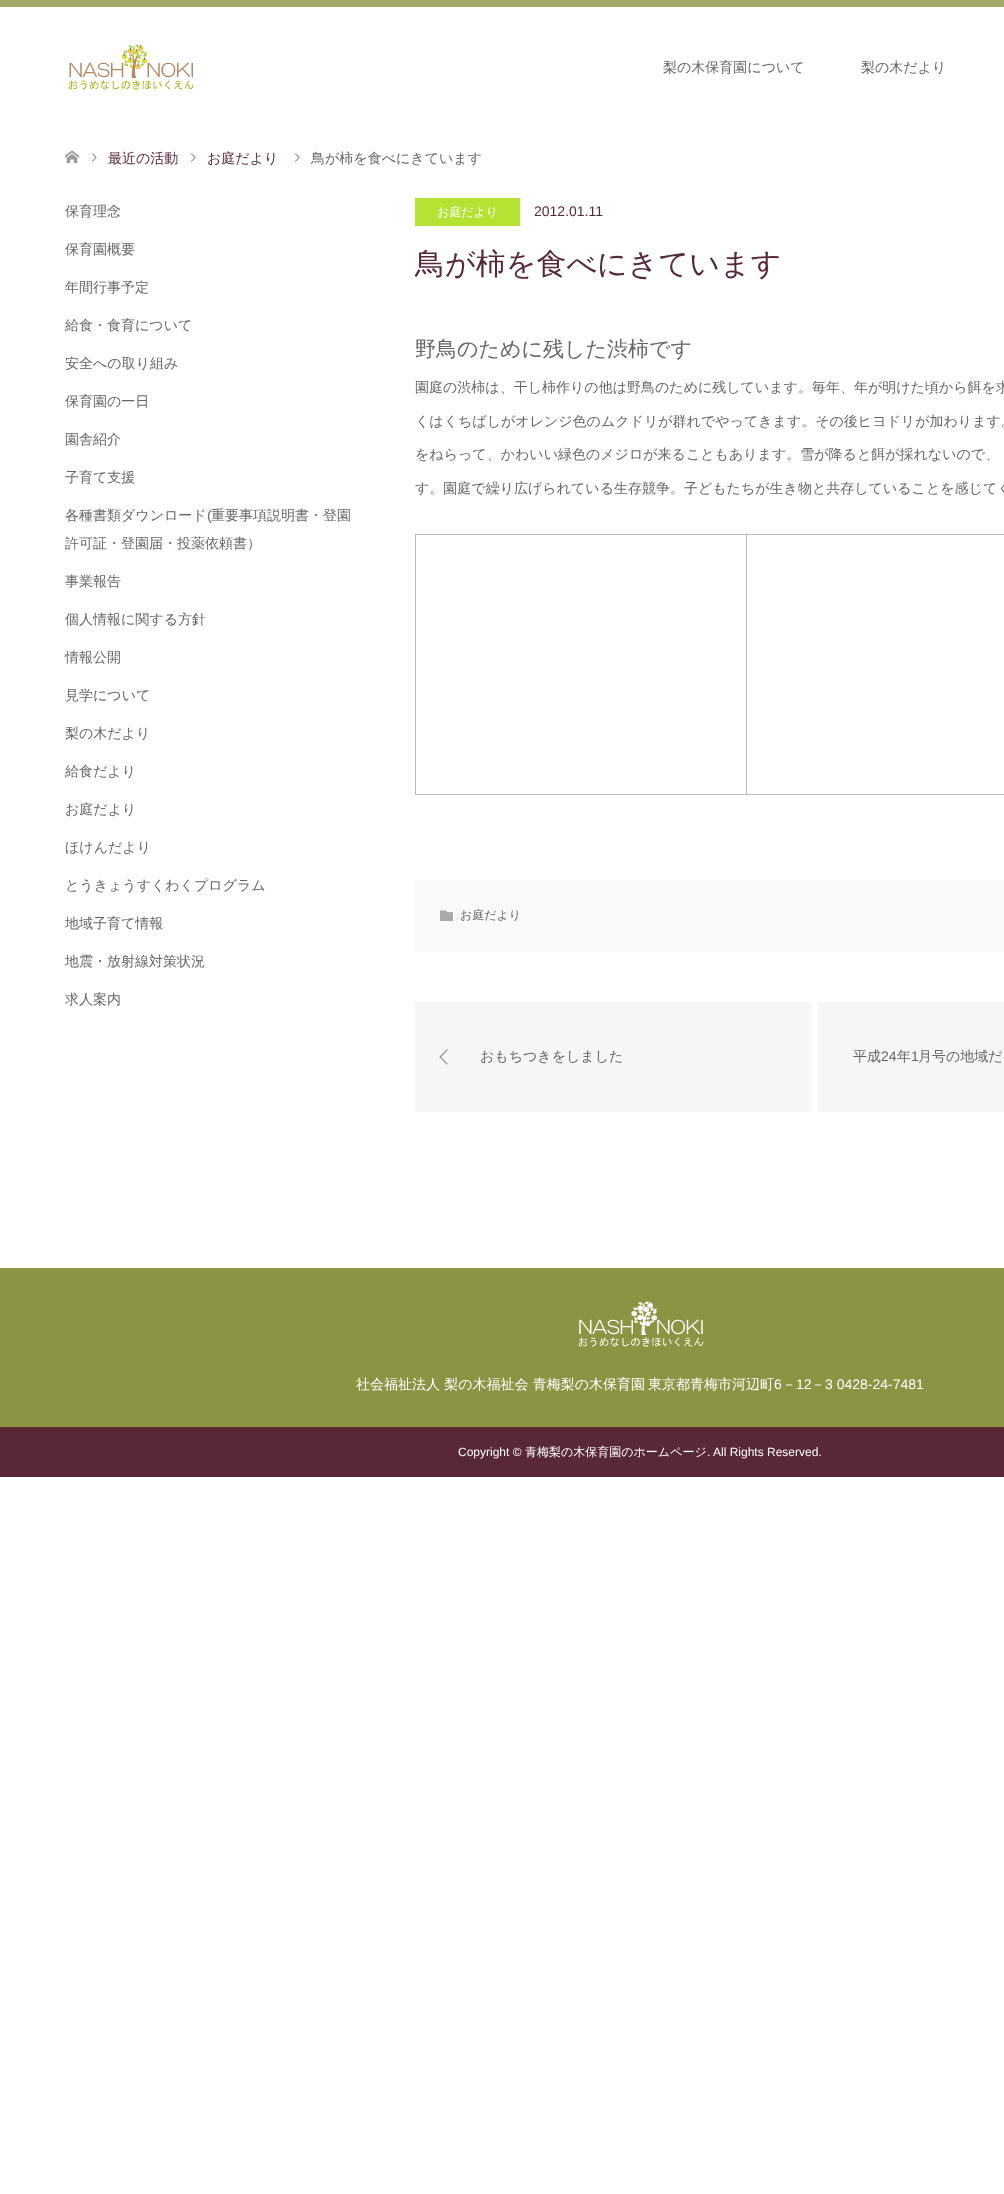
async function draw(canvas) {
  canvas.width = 1004
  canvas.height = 2194
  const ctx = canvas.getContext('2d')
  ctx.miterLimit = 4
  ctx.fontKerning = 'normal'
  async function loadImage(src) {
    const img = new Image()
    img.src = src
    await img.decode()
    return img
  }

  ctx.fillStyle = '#fff'
  ctx.fillRect(0, 0, 1004, 2194)
  ctx.fillStyle = '#a3a969'
  ctx.fillRect(0, 0, 1004, 7)
  ctx.drawImage(await loadImage('image0.png'), 69, 44, 125, 46)
  ctx.font = '500 14px WenQuanYi Zen Hei'
  ctx.fillStyle = '#666'
  ctx.fillText('梨の木保育園について', 663, 72)
  ctx.fillText('梨の木だより', 861, 72)
  ctx.drawImage(await loadImage('image1.png'), 65, 150, 14, 13)
  ctx.drawImage(await loadImage('image2.png'), 92, 153, 5, 9)
  ctx.fillStyle = '#582836'
  ctx.fillText('最近の活動', 108, 163)
  ctx.drawImage(await loadImage('image2.png'), 191, 153, 5, 9)
  ctx.fillText('お庭だより', 207, 163)
  ctx.drawImage(await loadImage('image2.png'), 295, 153, 5, 9)
  ctx.fillStyle = '#666'
  ctx.fillText('鳥が柿を食べにきています', 311, 163)
  ctx.fillText('保育理念', 65, 216)
  ctx.fillText('保育園概要', 65, 254)
  ctx.fillText('年間行事予定', 65, 292)
  ctx.fillText('給食・食育について', 65, 330)
  ctx.fillText('安全への取り組み', 65, 368)
  ctx.fillText('保育園の一日', 65, 406)
  ctx.fillText('園舎紹介', 65, 444)
  ctx.fillText('子育て支援', 65, 482)
  ctx.fillText('各種書類ダウンロード', 65, 520)
  ctx.font = '14px Liberation Sans'
  ctx.fillText('(', 207, 520)
  ctx.font = '500 14px WenQuanYi Zen Hei'
  ctx.fillText('重要事項説明書・登園', 211, 520)
  ctx.fillText('許可証・登園届・投薬依頼書）', 65, 548)
  ctx.fillText('事業報告', 65, 586)
  ctx.fillText('個人情報に関する方針', 65, 624)
  ctx.fillText('情報公開', 65, 662)
  ctx.fillText('見学について', 65, 700)
  ctx.fillText('梨の木だより', 65, 738)
  ctx.fillText('給食だより', 65, 776)
  ctx.fillText('お庭だより', 65, 814)
  ctx.fillText('ほけんだより', 65, 852)
  ctx.fillText('とうきょうすくわくプログラム', 65, 890)
  ctx.fillText('地域子育て情報', 65, 928)
  ctx.fillText('地震・放射線対策状況', 65, 966)
  ctx.fillText('求人案内', 65, 1004)
  ctx.fillStyle = '#b4e333'
  ctx.fillRect(415, 198, 105, 28)
  ctx.font = '500 12px WenQuanYi Zen Hei'
  ctx.fillStyle = '#fff'
  ctx.fillText('お庭だより', 437, 216)
  ctx.font = '14px Liberation Sans'
  ctx.fillStyle = '#582836'
  ctx.fillText('2012.01.11', 534, 216)
  ctx.font = '500 30px WenQuanYi Zen Hei'
  ctx.fillText('鳥が柿を食べにきています', 415, 274)
  ctx.font = '500 21px WenQuanYi Zen Hei'
  ctx.fillStyle = '#666'
  ctx.fillText('野鳥のために残した渋柿です', 415, 356)
  ctx.font = '500 14px WenQuanYi Zen Hei'
  ctx.fillText('園庭の渋柿は、干し柿作りの他は野鳥のために残しています。毎年、年が明けた頃から餌を求', 415, 392)
  ctx.fillText('くはくちばしがオレンジ色のムクドリが群れでやってきます。その後ヒヨドリが加わります。', 415, 426)
  ctx.fillText('をねらって、かわいい緑色のメジロが来ることもあります。雪が降ると餌が採れないので、', 415, 459)
  ctx.fillText('す。園庭で繰り広げられている生存競争。子どもたちが生き物と共存していることを感じてく', 415, 493)
  ctx.fillStyle = '#bbb'
  ctx.fillRect(746, 534, 258, 1)
  ctx.fillRect(746, 794, 258, 1)
  ctx.fillRect(746, 534, 1, 261)
  ctx.fillRect(415, 534, 332, 1)
  ctx.fillRect(415, 794, 332, 1)
  ctx.fillRect(415, 534, 1, 261)
  ctx.fillStyle = '#f9f9f9'
  ctx.fillRect(415, 880, 589, 72)
  ctx.drawImage(await loadImage('image3.png'), 440, 910, 13, 11)
  ctx.font = '500 12px WenQuanYi Zen Hei'
  ctx.fillStyle = '#666'
  ctx.fillText('お庭だより', 460, 919)
  ctx.fillStyle = '#f6f6f6'
  ctx.fillRect(415, 1002, 397, 110)
  ctx.drawImage(await loadImage('image4.png'), 439, 1049, 9, 16)
  ctx.font = '500 14px WenQuanYi Zen Hei'
  ctx.fillStyle = '#666'
  ctx.fillText('おもちつきをしました', 480, 1061)
  ctx.fillStyle = '#f6f6f6'
  ctx.fillRect(818, 1002, 186, 110)
  ctx.fillStyle = '#666'
  ctx.fillText('平成', 853, 1061)
  ctx.font = '14px Liberation Sans'
  ctx.fillText('24', 881, 1061)
  ctx.font = '500 14px WenQuanYi Zen Hei'
  ctx.fillText('年', 897, 1061)
  ctx.font = '14px Liberation Sans'
  ctx.fillText('1', 911, 1061)
  ctx.font = '500 14px WenQuanYi Zen Hei'
  ctx.fillText('月号の地域だ', 918, 1061)
  ctx.fillStyle = '#8c9343'
  ctx.fillRect(0, 1268, 1004, 159)
  ctx.drawImage(await loadImage('image5.png'), 578, 1301, 126, 46)
  ctx.fillStyle = '#fff'
  ctx.fillText('社会福祉法人 梨の木福祉会 青梅梨の木保育園', 356, 1389)
  ctx.fillText('東京都青梅市河辺町', 648, 1389)
  ctx.font = '14px Liberation Sans'
  ctx.fillText('6', 774, 1389)
  ctx.font = '500 14px WenQuanYi Zen Hei'
  ctx.fillText('－', 782, 1389)
  ctx.font = '14px Liberation Sans'
  ctx.fillText('12', 796, 1389)
  ctx.font = '500 14px WenQuanYi Zen Hei'
  ctx.fillText('－', 811, 1389)
  ctx.font = '14px Liberation Sans'
  ctx.fillText('3 0428-24-7481', 825, 1389)
  ctx.fillStyle = '#582836'
  ctx.fillRect(0, 1427, 1004, 50)
  ctx.font = '12px Liberation Sans'
  ctx.fillStyle = '#fff'
  ctx.fillText('Copyright ©', 458, 1456)
  ctx.font = '500 12px WenQuanYi Zen Hei'
  ctx.fillText('青梅梨の木保育園のホームページ', 525, 1456)
  ctx.font = '12px Liberation Sans'
  ctx.fillText('. All Rights Reserved.', 707, 1456)
}

draw(document.querySelector('canvas'))
